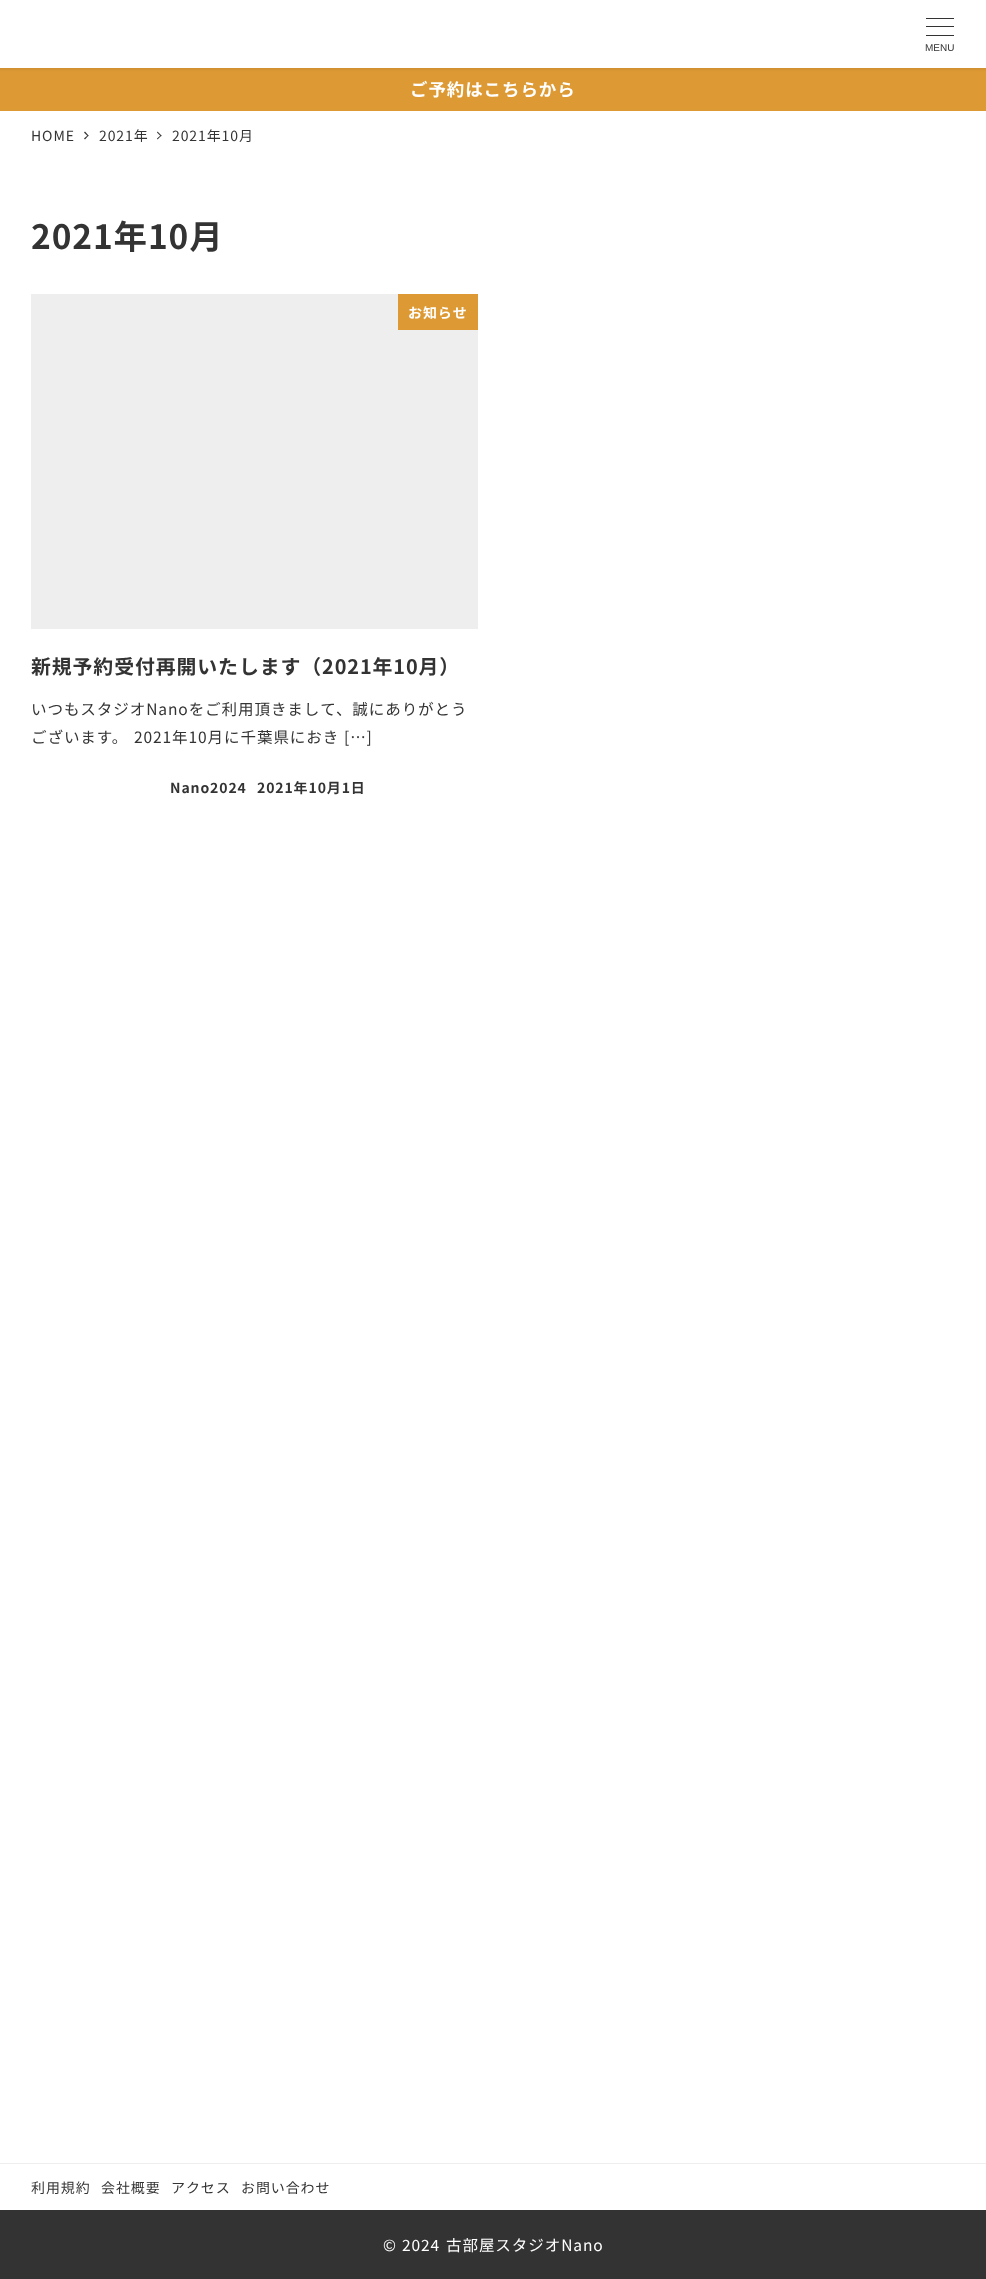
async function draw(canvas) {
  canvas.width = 986
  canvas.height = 2279
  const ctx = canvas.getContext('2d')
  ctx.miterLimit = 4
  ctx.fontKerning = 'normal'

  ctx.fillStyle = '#fff'
  ctx.fillRect(0, 0, 986, 2279)
  ctx.fillStyle = '#d93'
  ctx.fillRect(0, 68, 986, 43)
  ctx.fillStyle = '#0000000d'
  ctx.filter = 'blur(1px)'
  ctx.beginPath()
  ctx.rect(-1, 0, 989, 70)
  ctx.fill()
  ctx.filter = 'none'
  ctx.fillStyle = '#fff'
  ctx.fillRect(0, 0, 986, 68)
  ctx.fillStyle = '#333'
  ctx.fillRect(926, 18, 28, 1)
  ctx.fillRect(926, 26, 28, 1)
  ctx.fillRect(926, 35, 28, 1)
  ctx.font = '10px Liberation Sans'
  ctx.fillText('MENU', 925, 51)
  ctx.letterSpacing = '0.9px'
  ctx.font = 'bold 17.5px Noto Sans JP'
  ctx.fillStyle = '#fff'
  ctx.fillText('ご予約はこちらから', 410, 96)
  ctx.font = '14px Noto Sans JP'
  ctx.fillStyle = '#333'
  ctx.fillText('HOME', 31, 141)
  ctx.beginPath()
  ctx.moveTo(85, 131.5)
  ctx.lineTo(88.5, 135.5)
  ctx.lineTo(88, 136.5)
  ctx.lineTo(84, 132.5)
  ctx.closePath()
  ctx.fill()
  ctx.beginPath()
  ctx.moveTo(88, 135)
  ctx.lineTo(88.5, 135.5)
  ctx.lineTo(85, 139.5)
  ctx.lineTo(84, 138.5)
  ctx.closePath()
  ctx.fill()
  ctx.fillText('2021年', 99, 141)
  ctx.beginPath()
  ctx.moveTo(157.5, 131.5)
  ctx.lineTo(161.5, 135.5)
  ctx.lineTo(161, 136.5)
  ctx.lineTo(157, 132.5)
  ctx.closePath()
  ctx.fill()
  ctx.beginPath()
  ctx.moveTo(161, 135)
  ctx.lineTo(161.5, 135.5)
  ctx.lineTo(157.5, 139.5)
  ctx.lineTo(157, 138.5)
  ctx.closePath()
  ctx.fill()
  ctx.fillText('2021年10月', 172, 141)
  ctx.font = 'bold 33.5px Noto Sans JP'
  ctx.fillText('2021年10月', 31, 249)
  ctx.fillStyle = '#eee'
  ctx.fillRect(31, 294, 447, 335)
  ctx.fillStyle = '#d93'
  ctx.fillRect(398, 294, 80, 36)
  ctx.font = 'bold 14px Noto Sans JP'
  ctx.fillStyle = '#fff'
  ctx.fillText('お知らせ', 408, 318)
  ctx.font = 'bold 19.9px Noto Sans JP'
  ctx.fillStyle = '#333'
  ctx.fillText('新規予約受付再開いたします（2021年10月）', 31, 674)
  ctx.font = '15.55px Noto Sans JP'
  ctx.fillText('いつもスタジオNanoをご利用頂きまして、誠にありがとう', 31, 715)
  ctx.fillText('ございます。', 31, 743)
  ctx.fillText('2021年10月に千葉県におき', 134, 743)
  ctx.fillText('[…]', 344, 743)
  ctx.font = 'bold 14px Noto Sans JP'
  ctx.fillText('Nano2024', 170, 793)
  ctx.fillText('2021年10月1日', 257, 793)
  ctx.fillStyle = '#eee'
  ctx.fillRect(0, 2163, 986, 1)
  ctx.font = '14px Noto Sans JP'
  ctx.fillStyle = '#333'
  ctx.fillText('利用規約', 31, 2193)
  ctx.fillText('会社概要', 101, 2193)
  ctx.fillText('アクセス', 171, 2193)
  ctx.fillText('お問い合わせ', 241, 2193)
  ctx.fillRect(0, 2210, 986, 69)
  ctx.font = '15.55px Noto Sans JP'
  ctx.fillStyle = '#fff'
  ctx.fillText('©', 383, 2251)
  ctx.fillText('2024', 402, 2251)
  ctx.fillText('古部屋スタジオNano', 446, 2251)
}

draw(document.querySelector('canvas'))
